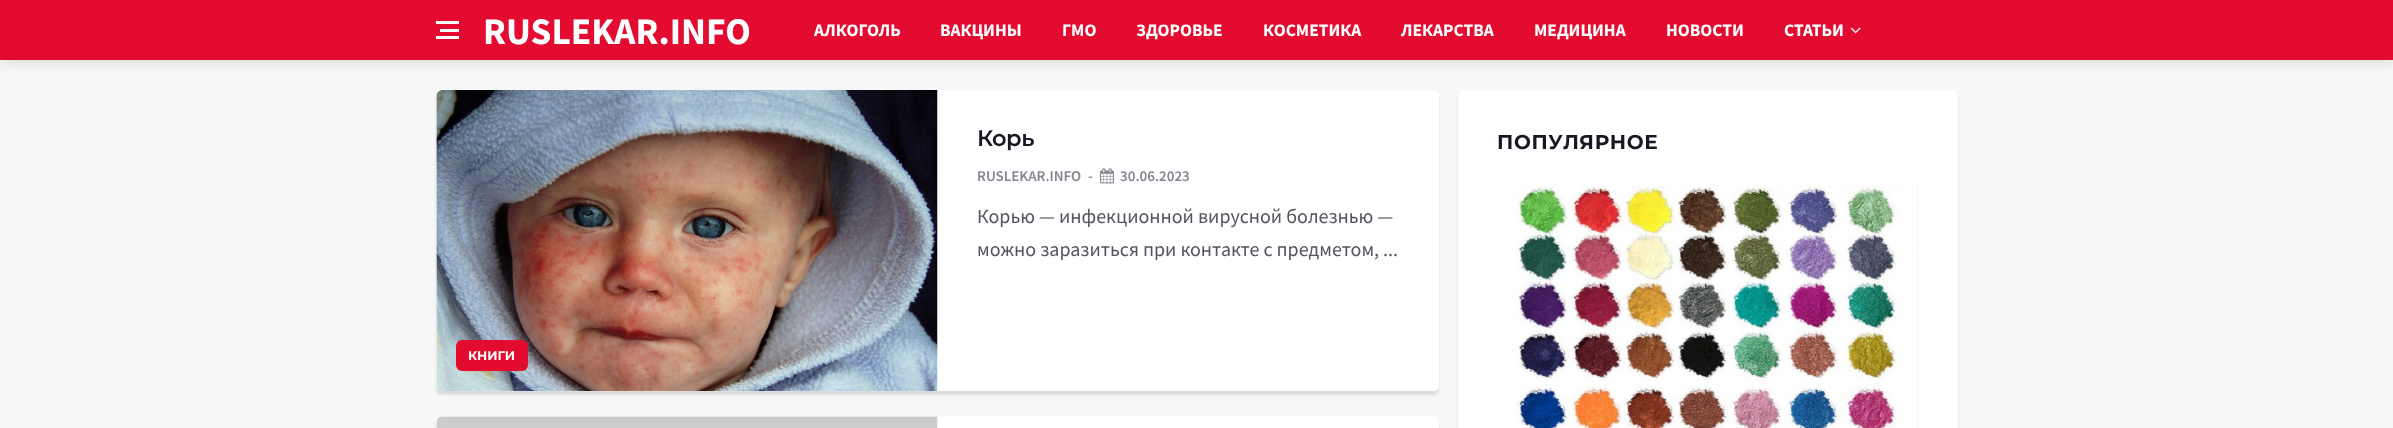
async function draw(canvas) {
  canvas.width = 2393
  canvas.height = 428
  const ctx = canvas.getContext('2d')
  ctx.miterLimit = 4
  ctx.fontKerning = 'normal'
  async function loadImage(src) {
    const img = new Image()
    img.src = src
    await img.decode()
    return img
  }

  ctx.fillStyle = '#f7f7f7'
  ctx.fillRect(0, 0, 2393, 428)
  ctx.fillStyle = '#0000001a'
  ctx.filter = 'blur(6px)'
  ctx.beginPath()
  ctx.rect(0, 3, 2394, 60)
  ctx.fill()
  ctx.filter = 'none'
  ctx.fillStyle = '#e30b2f'
  ctx.fillRect(0, 0, 2393, 60)
  ctx.fillStyle = '#fff'
  ctx.fillRect(440, 29, 19, 3)
  ctx.fillRect(436, 21, 23, 3)
  ctx.fillRect(436, 36, 23, 3)
  ctx.font = 'bold 37.5px Source Sans Pro'
  ctx.fillText('RUSLEKAR.INFO', 483, 44)
  ctx.font = 'bold 17.5px Source Sans Pro'
  ctx.fillText('АЛКОГОЛЬ', 814, 36)
  ctx.fillText('ВАКЦИНЫ', 940, 36)
  ctx.fillText('ГМО', 1062, 36)
  ctx.fillText('ЗДОРОВЬЕ', 1136, 36)
  ctx.fillText('КОСМЕТИКА', 1263, 36)
  ctx.fillText('ЛЕКАРСТВА', 1401, 36)
  ctx.fillText('МЕДИЦИНА', 1534, 36)
  ctx.fillText('НОВОСТИ', 1666, 36)
  ctx.fillText('СТАТЬИ', 1784, 36)
  ctx.drawImage(await loadImage('image0.png'), 1850, 27, 11, 7)
  ctx.fillStyle = '#0000001a'
  ctx.filter = 'blur(1px)'
  ctx.beginPath()
  ctx.roundRect(436, 94, 1003, 301, 6)
  ctx.fill()
  ctx.filter = 'none'
  ctx.fillStyle = '#fff'
  ctx.beginPath()
  ctx.roundRect(436, 90, 1003, 301, 6)
  ctx.fill()
  ctx.beginPath()
  ctx.roundRect(938, 90, 501, 301, 6)
  ctx.fill()
  ctx.letterSpacing = '-0.5px'
  ctx.font = '600 22.5px Montserrat'
  ctx.fillStyle = '#171821'
  ctx.fillText('Корь', 977, 146)
  ctx.letterSpacing = '0px'
  ctx.font = '600 15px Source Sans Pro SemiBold'
  ctx.fillStyle = '#83858f'
  ctx.fillText('RUSLEKAR.INFO', 977, 181)
  ctx.fillText('-', 1088, 181)
  ctx.drawImage(await loadImage('image1.png'), 1100, 168, 14, 16)
  ctx.fillText('30.06.2023', 1120, 181)
  ctx.font = '20px Source Sans Pro'
  ctx.fillStyle = '#54555e'
  ctx.fillText('Корью — инфекционной вирусной болезнью —', 977, 223)
  ctx.fillText('можно заразиться при контакте с предметом, ...', 977, 256)
  ctx.drawImage(await loadImage('image2.png'), 436, 90, 502, 301)
  ctx.fillStyle = '#e30b2f'
  ctx.beginPath()
  ctx.roundRect(456, 340, 72, 31, 6)
  ctx.fill()
  ctx.font = 'bold 12.5px Montserrat'
  ctx.fillStyle = '#fff'
  ctx.fillText('КНИГИ', 468, 360)
  ctx.fillStyle = '#0000001a'
  ctx.filter = 'blur(1px)'
  ctx.beginPath()
  ctx.roundRect(436, 420, 1003, 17, 6)
  ctx.fill()
  ctx.filter = 'none'
  ctx.fillStyle = '#fff'
  ctx.beginPath()
  ctx.roundRect(436, 416, 1003, 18, 6)
  ctx.fill()
  ctx.drawImage(await loadImage('image3.png'), 436, 416, 502, 12)
  ctx.fillStyle = '#0000001a'
  ctx.filter = 'blur(1px)'
  ctx.beginPath()
  ctx.roundRect(1458, 94, 500, 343, 6)
  ctx.fill()
  ctx.filter = 'none'
  ctx.fillStyle = '#fff'
  ctx.beginPath()
  ctx.roundRect(1458, 90, 500, 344, 6)
  ctx.fill()
  ctx.letterSpacing = '0.75px'
  ctx.font = 'bold 20px Montserrat'
  ctx.fillStyle = '#171821'
  ctx.fillText('ПОПУЛЯРНОЕ', 1497, 149)
  ctx.fillStyle = '#f7f7f7'
  ctx.fillRect(1498, 186, 420, 242)
  ctx.drawImage(await loadImage('image4.png'), 1498, 186, 419, 242)
}

draw(document.querySelector('canvas'))
